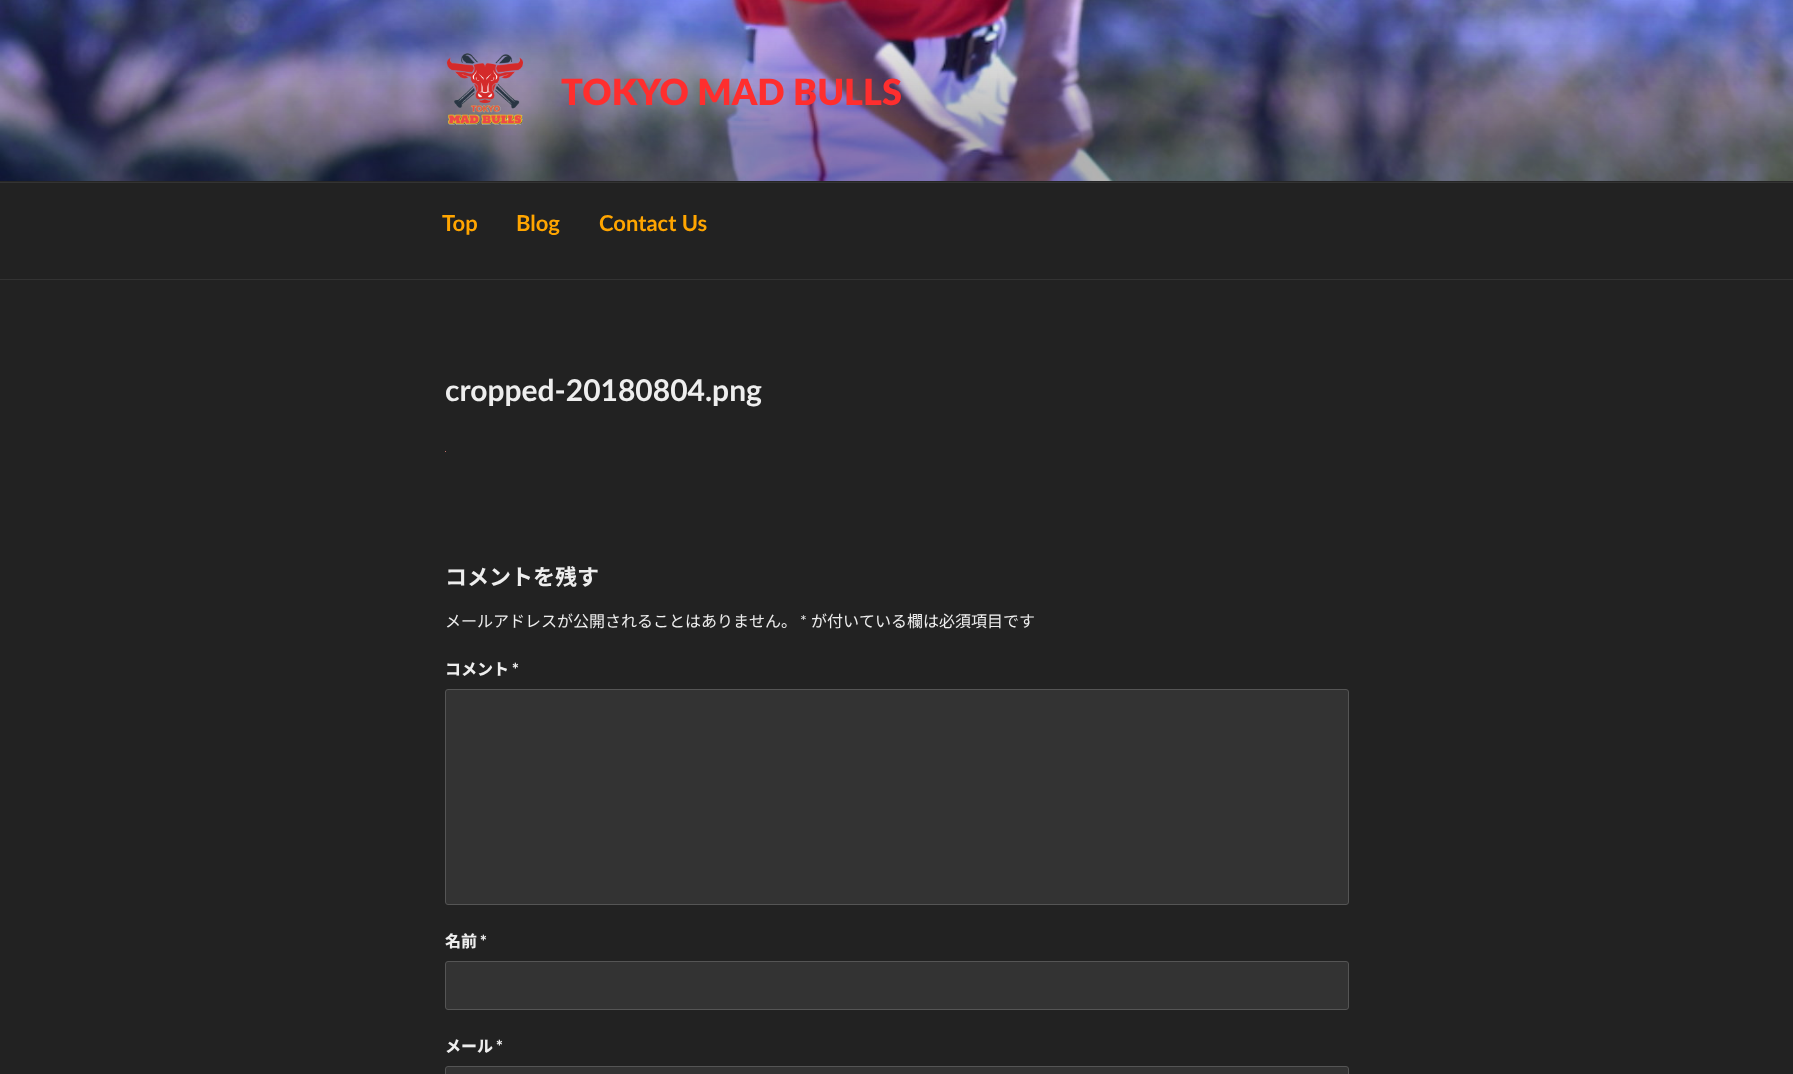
async function draw(canvas) {
  canvas.width = 1793
  canvas.height = 1074
  const ctx = canvas.getContext('2d')
  ctx.miterLimit = 4
  ctx.fontKerning = 'normal'
  async function loadImage(src) {
    const img = new Image()
    img.src = src
    await img.decode()
    return img
  }

  ctx.fillStyle = '#222'
  ctx.fillRect(0, 0, 1793, 1074)
  ctx.fillStyle = '#262626'
  ctx.fillRect(0, 181, 1793, 1)
  ctx.drawImage(await loadImage('image0.png'), 0, 0, 1793, 181)
  ctx.drawImage(await loadImage('image1.png'), 446, 53, 78, 72)
  ctx.font = '800 36px Lato'
  ctx.fillStyle = '#fe2e2e'
  ctx.fillText('TOKYO MAD BULLS', 561, 105)
  ctx.fillStyle = '#333'
  ctx.fillRect(0, 182, 1793, 1)
  ctx.fillRect(0, 279, 1793, 1)
  ctx.font = 'bold 22px Lato'
  ctx.fillStyle = '#ffa500'
  ctx.fillText('Top', 442, 231)
  ctx.fillText('Blog', 516, 231)
  ctx.fillText('Contact Us', 599, 231)
  ctx.font = 'bold 30px Lato'
  ctx.fillStyle = '#eee'
  ctx.fillText('cropped-20180804.png', 445, 401)
  ctx.fillStyle = '#bf716a'
  ctx.fillRect(445, 451, 1, 1)
  ctx.font = 'bold 22px Noto Sans JP'
  ctx.fillStyle = '#eee'
  ctx.fillText('コメントを残す', 445, 585)
  ctx.font = '16px Noto Sans JP'
  ctx.fillText('メールアドレスが公開されることはありません。', 445, 627)
  ctx.font = '16px Lato'
  ctx.fillText('*', 800, 627)
  ctx.font = '16px Noto Sans JP'
  ctx.fillText('が付いている欄は必須項目です', 811, 627)
  ctx.font = '800 16px Noto Sans JP'
  ctx.fillText('コメント', 445, 675)
  ctx.font = '800 16px Lato'
  ctx.fillText('*', 512, 675)
  ctx.fillStyle = '#333'
  ctx.beginPath()
  ctx.roundRect(445.5, 689.5, 903, 215, 2.5)
  ctx.fill()
  ctx.strokeStyle = '#555'
  ctx.stroke()
  ctx.font = '800 16px Noto Sans JP'
  ctx.fillStyle = '#eee'
  ctx.fillText('名前', 445, 947)
  ctx.font = '800 16px Lato'
  ctx.fillText('*', 480, 947)
  ctx.fillStyle = '#333'
  ctx.beginPath()
  ctx.roundRect(445.5, 961.5, 903, 48, 2.5)
  ctx.fill()
  ctx.stroke()
  ctx.font = '800 16px Noto Sans JP'
  ctx.fillStyle = '#eee'
  ctx.fillText('メール', 445, 1052)
  ctx.font = '800 16px Lato'
  ctx.fillText('*', 496, 1052)
  ctx.fillStyle = '#333'
  ctx.beginPath()
  ctx.roundRect(445.5, 1066.5, 903, 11, 2.5)
  ctx.fill()
  ctx.stroke()
}

draw(document.querySelector('canvas'))
